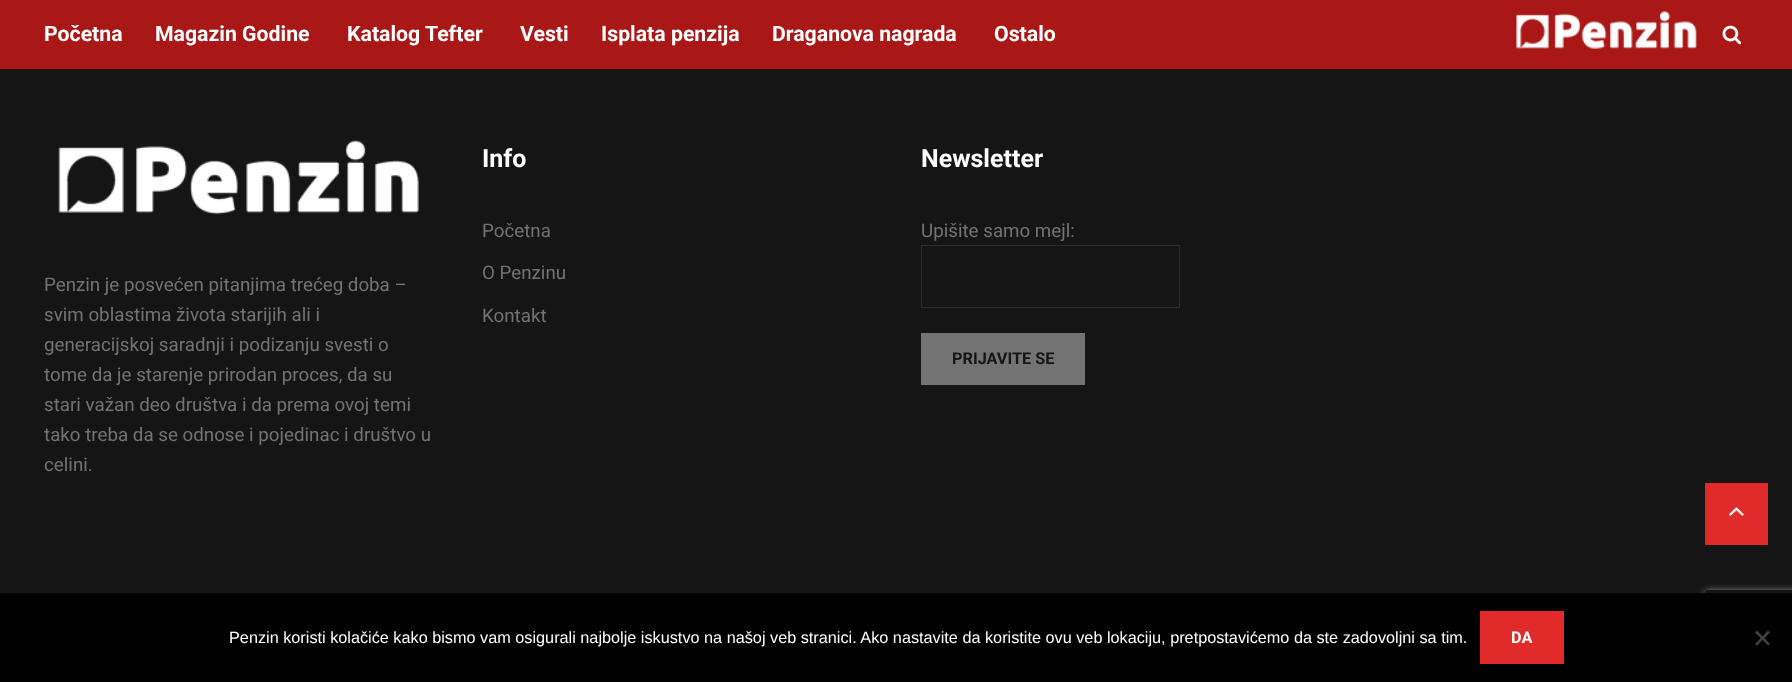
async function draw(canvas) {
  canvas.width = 1792
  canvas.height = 682
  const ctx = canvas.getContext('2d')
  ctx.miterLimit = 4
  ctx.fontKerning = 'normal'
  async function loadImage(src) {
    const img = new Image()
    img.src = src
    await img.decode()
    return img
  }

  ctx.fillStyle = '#151515'
  ctx.fillRect(0, 0, 1792, 682)
  ctx.fillStyle = '#a91717'
  ctx.fillRect(0, 0, 1792, 69)
  ctx.font = 'bold 21.25px Roboto'
  ctx.fillStyle = '#fff'
  ctx.fillText('Početna', 44, 41)
  ctx.fillText('Magazin Godine', 155, 41)
  ctx.fillText('Katalog Tefter', 347, 41)
  ctx.fillText('Vesti', 520, 41)
  ctx.fillText('Isplata penzija', 601, 41)
  ctx.fillText('Draganova nagrada', 772, 41)
  ctx.fillText('Ostalo', 994, 41)
  ctx.drawImage(await loadImage('image0.png'), 1722, 25, 20, 20)
  ctx.drawImage(await loadImage('image1.png'), 1516, 11, 181, 38)
  ctx.drawImage(await loadImage('image2.png'), 58, 140, 361, 75)
  ctx.font = '18.75px Roboto'
  ctx.fillStyle = '#737373'
  ctx.fillText('Penzin je posvećen pitanjima trećeg doba –', 44, 291)
  ctx.fillText('svim oblastima života starijih ali i', 44, 321)
  ctx.fillText('generacijskoj saradnji i podizanju svesti o', 44, 351)
  ctx.fillText('tome da je starenje prirodan proces, da su', 44, 381)
  ctx.fillText('stari važan deo društva i da prema ovoj temi', 44, 411)
  ctx.fillText('tako treba da se odnose i pojedinac i društvo u', 44, 441)
  ctx.fillText('celini.', 44, 471)
  ctx.font = 'bold 25px Roboto'
  ctx.fillStyle = '#fff'
  ctx.fillText('Info', 482, 167)
  ctx.font = '18.75px Roboto'
  ctx.fillStyle = '#737373'
  ctx.fillText('Početna', 482, 237)
  ctx.fillText('O Penzinu', 482, 279)
  ctx.fillText('Kontakt', 482, 322)
  ctx.font = 'bold 25px Roboto'
  ctx.fillStyle = '#fff'
  ctx.fillText('Newsletter', 921, 167)
  ctx.font = '18.75px Roboto'
  ctx.fillStyle = '#737373'
  ctx.fillText('Upišite samo mejl:', 921, 237)
  ctx.strokeStyle = '#2c2c2c'
  ctx.strokeRect(921.5, 245.5, 258, 62)
  ctx.fillRect(921, 333, 164, 52)
  ctx.font = 'bold 16.25px Roboto'
  ctx.fillStyle = '#151515'
  ctx.fillText('PRIJAVITE SE', 952, 364)
  ctx.fillStyle = '#e12b2b'
  ctx.fillRect(1705, 483, 63, 62)
  ctx.drawImage(await loadImage('image3.png'), 1729, 507, 15, 9)
  ctx.save()
  ctx.beginPath()
  ctx.moveTo(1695, 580)
  ctx.lineTo(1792, 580)
  ctx.lineTo(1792, 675)
  ctx.lineTo(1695, 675)
  ctx.closePath()
  ctx.moveTo(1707.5, 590)
  ctx.lineTo(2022.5, 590)
  ctx.bezierCurveTo(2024, 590, 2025, 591, 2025, 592.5)
  ctx.lineTo(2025, 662.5)
  ctx.bezierCurveTo(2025, 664, 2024, 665, 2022.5, 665)
  ctx.lineTo(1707.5, 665)
  ctx.bezierCurveTo(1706, 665, 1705, 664, 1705, 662.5)
  ctx.lineTo(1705, 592.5)
  ctx.bezierCurveTo(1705, 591, 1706, 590, 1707.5, 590)
  ctx.closePath()
  ctx.clip('evenodd')
  ctx.fillStyle = '#808080'
  ctx.filter = 'blur(3px)'
  ctx.beginPath()
  ctx.roundRect(1705, 590, 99, 75, 2.5)
  ctx.fill()
  ctx.filter = 'none'
  ctx.restore()
  ctx.fillStyle = '#000'
  ctx.fillRect(0, 593, 1792, 89)
  ctx.font = '16.25px Liberation Sans'
  ctx.fillStyle = '#fff'
  ctx.fillText('Penzin koristi kolačiće kako bismo vam osigurali najbolje iskustvo na našoj veb stranici. Ako nastavite da koristite ovu veb lokaciju, pretpostavićemo da ste zadovoljni sa tim.', 229, 643)
  ctx.fillStyle = '#e12b2b'
  ctx.fillRect(1480, 611, 84, 53)
  ctx.font = 'bold 16.25px Roboto'
  ctx.fillStyle = '#fff'
  ctx.fillText('DA', 1511, 643)
  ctx.fillStyle = '#404040'
  ctx.beginPath()
  ctx.moveTo(1768, 630.5)
  ctx.lineTo(1770, 632.5)
  ctx.lineTo(1757, 645.5)
  ctx.lineTo(1755, 644)
  ctx.closePath()
  ctx.fill()
  ctx.beginPath()
  ctx.moveTo(1755, 632.5)
  ctx.lineTo(1757, 630.5)
  ctx.lineTo(1770, 644)
  ctx.lineTo(1768, 645.5)
  ctx.closePath()
  ctx.fill()
}

draw(document.querySelector('canvas'))
